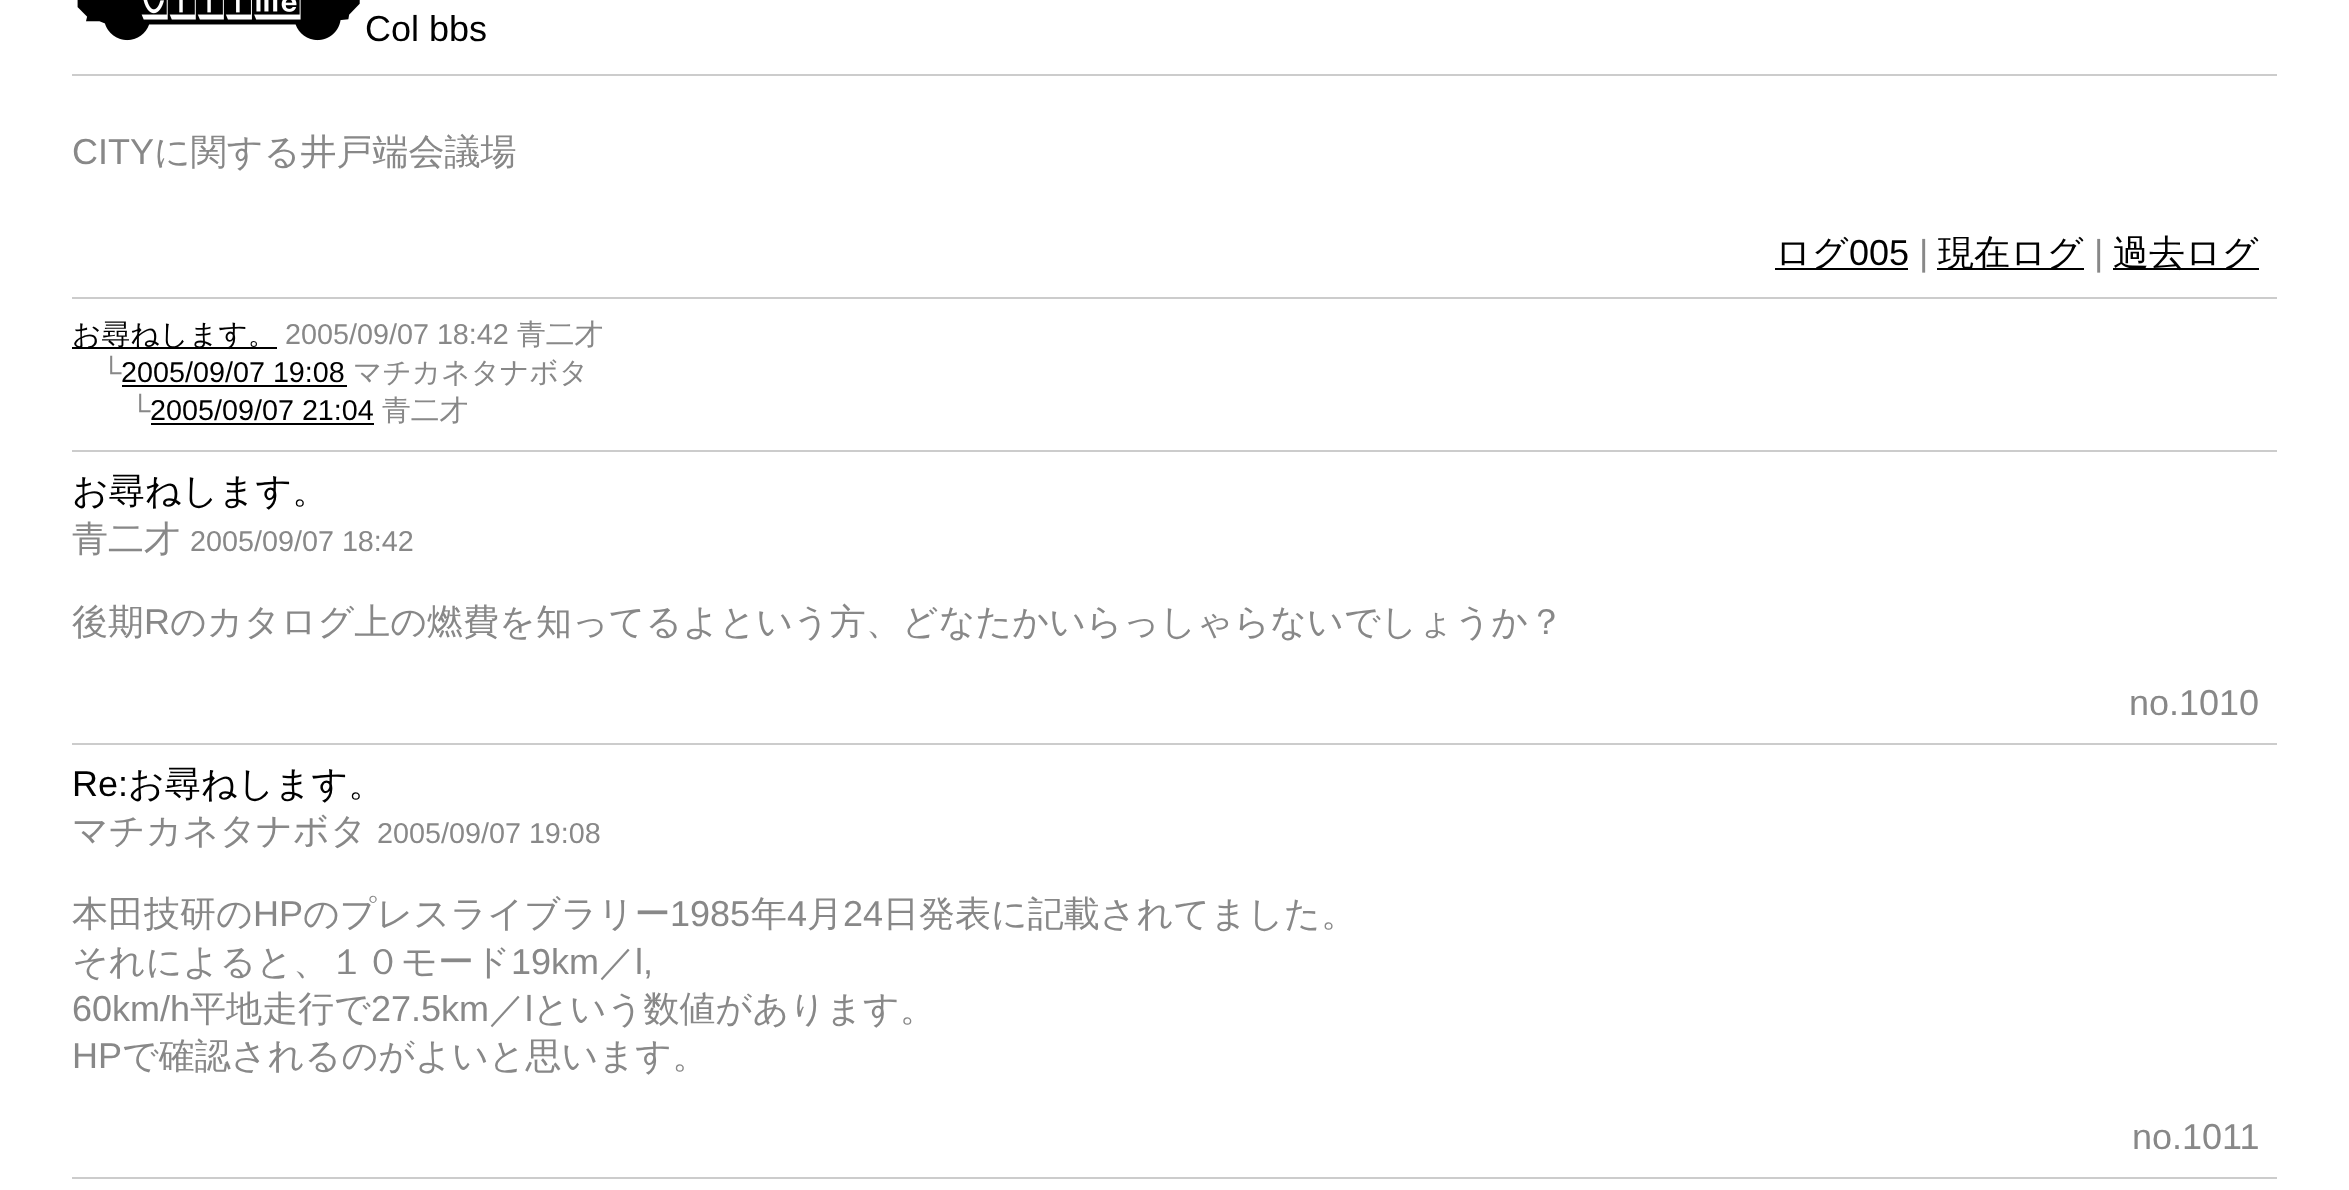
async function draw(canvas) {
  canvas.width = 2349
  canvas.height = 1190
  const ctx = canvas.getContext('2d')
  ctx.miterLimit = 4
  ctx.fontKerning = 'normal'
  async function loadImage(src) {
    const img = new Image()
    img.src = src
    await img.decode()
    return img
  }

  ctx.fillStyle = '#fff'
  ctx.fillRect(0, 0, 2349, 1190)
  ctx.drawImage(await loadImage('image0.png'), 77, 0, 283, 41)
  ctx.font = '36px Liberation Sans'
  ctx.fillStyle = '#000'
  ctx.fillText('Col bbs', 365, 41)
  ctx.fillStyle = '#ccc'
  ctx.fillRect(72, 74, 2205, 2)
  ctx.fillStyle = '#888'
  ctx.fillText('CITY', 72, 164)
  ctx.font = '500 36px WenQuanYi Zen Hei'
  ctx.fillText('に関する井戸端会議場', 154, 164)
  ctx.fillStyle = '#000'
  ctx.fillRect(1775, 268, 133, 2)
  ctx.fillText('ログ', 1775, 265)
  ctx.font = '36px Liberation Sans'
  ctx.fillText('005', 1849, 265)
  ctx.fillStyle = '#888'
  ctx.fillText('|', 1919, 265)
  ctx.fillStyle = '#000'
  ctx.fillRect(1937, 268, 147, 2)
  ctx.font = '500 36px WenQuanYi Zen Hei'
  ctx.fillText('現在ログ', 1938, 265)
  ctx.font = '36px Liberation Sans'
  ctx.fillStyle = '#888'
  ctx.fillText('|', 2094, 265)
  ctx.fillStyle = '#000'
  ctx.fillRect(2113, 268, 146, 2)
  ctx.font = '500 36px WenQuanYi Zen Hei'
  ctx.fillText('過去ログ', 2113, 265)
  ctx.fillStyle = '#ccc'
  ctx.fillRect(72, 297, 2205, 2)
  ctx.fillStyle = '#000'
  ctx.fillRect(72, 347, 205, 2)
  ctx.font = '500 28.75px WenQuanYi Zen Hei'
  ctx.fillText('お尋ねします。', 72, 344)
  ctx.font = '28.75px Liberation Sans'
  ctx.fillStyle = '#888'
  ctx.fillText('2005/09/07 18:42', 285, 344)
  ctx.font = '500 28.75px WenQuanYi Zen Hei'
  ctx.fillText('青二才', 517, 344)
  ctx.font = '28.75px Liberation Sans'
  ctx.fillText('└', 101, 382)
  ctx.fillStyle = '#000'
  ctx.fillText('2005/09/07 19:08', 121, 382)
  ctx.fillRect(122, 385, 225, 2)
  ctx.font = '500 28.75px WenQuanYi Zen Hei'
  ctx.fillStyle = '#888'
  ctx.fillText('マチカネタナボタ', 353, 382)
  ctx.font = '28.75px Liberation Sans'
  ctx.fillText('└', 130, 420)
  ctx.fillStyle = '#000'
  ctx.fillText('2005/09/07 21:04', 150, 420)
  ctx.fillRect(151, 423, 223, 2)
  ctx.font = '500 28.75px WenQuanYi Zen Hei'
  ctx.fillStyle = '#888'
  ctx.fillText('青二才', 382, 420)
  ctx.fillStyle = '#ccc'
  ctx.fillRect(72, 450, 2205, 2)
  ctx.font = '500 36px WenQuanYi Zen Hei'
  ctx.fillStyle = '#000'
  ctx.fillText('お尋ねします。', 72, 503)
  ctx.fillStyle = '#888'
  ctx.fillText('青二才', 72, 551)
  ctx.font = '28.75px Liberation Sans'
  ctx.fillText('2005/09/07 18:42', 190, 551)
  ctx.font = '500 36px WenQuanYi Zen Hei'
  ctx.fillText('後期', 72, 634)
  ctx.font = '36px Liberation Sans'
  ctx.fillText('R', 144, 634)
  ctx.font = '500 36px WenQuanYi Zen Hei'
  ctx.fillText('のカタログ上の燃費を知ってるよという方、どなたかいらっしゃらないでしょうか？', 170, 634)
  ctx.font = '36px Liberation Sans'
  ctx.fillText('no.1010', 2129, 715)
  ctx.fillStyle = '#ccc'
  ctx.fillRect(72, 743, 2205, 2)
  ctx.fillStyle = '#000'
  ctx.fillText('Re:', 72, 796)
  ctx.font = '500 36px WenQuanYi Zen Hei'
  ctx.fillText('お尋ねします。', 128, 796)
  ctx.fillStyle = '#888'
  ctx.fillText('マチカネタナボタ', 72, 843)
  ctx.font = '28.75px Liberation Sans'
  ctx.fillText('2005/09/07 19:08', 377, 843)
  ctx.font = '500 36px WenQuanYi Zen Hei'
  ctx.fillText('本田技研の', 72, 926)
  ctx.font = '36px Liberation Sans'
  ctx.fillText('HP', 253, 926)
  ctx.font = '500 36px WenQuanYi Zen Hei'
  ctx.fillText('のプレスライブラリー', 303, 926)
  ctx.font = '36px Liberation Sans'
  ctx.fillText('1985', 670, 926)
  ctx.font = '500 36px WenQuanYi Zen Hei'
  ctx.fillText('年', 751, 926)
  ctx.font = '36px Liberation Sans'
  ctx.fillText('4', 787, 926)
  ctx.font = '500 36px WenQuanYi Zen Hei'
  ctx.fillText('月', 807, 926)
  ctx.font = '36px Liberation Sans'
  ctx.fillText('24', 843, 926)
  ctx.font = '500 36px WenQuanYi Zen Hei'
  ctx.fillText('日発表に記載されてました。', 883, 926)
  ctx.fillText('それによると、１０モード', 72, 974)
  ctx.font = '36px Liberation Sans'
  ctx.fillText('19km', 511, 974)
  ctx.font = '500 36px WenQuanYi Zen Hei'
  ctx.fillText('／', 599, 974)
  ctx.font = '36px Liberation Sans'
  ctx.fillText('l,', 635, 974)
  ctx.fillText('60km/h', 72, 1021)
  ctx.font = '500 36px WenQuanYi Zen Hei'
  ctx.fillText('平地走行で', 190, 1021)
  ctx.font = '36px Liberation Sans'
  ctx.fillText('27.5km', 371, 1021)
  ctx.font = '500 36px WenQuanYi Zen Hei'
  ctx.fillText('／', 489, 1021)
  ctx.font = '36px Liberation Sans'
  ctx.fillText('l', 525, 1021)
  ctx.font = '500 36px WenQuanYi Zen Hei'
  ctx.fillText('という数値があります。', 533, 1021)
  ctx.font = '36px Liberation Sans'
  ctx.fillText('HP', 72, 1068)
  ctx.font = '500 36px WenQuanYi Zen Hei'
  ctx.fillText('で確認されるのがよいと思います。', 122, 1068)
  ctx.font = '36px Liberation Sans'
  ctx.fillText('no.1011', 2132, 1149)
  ctx.fillStyle = '#ccc'
  ctx.fillRect(72, 1177, 2205, 2)
}

draw(document.querySelector('canvas'))
